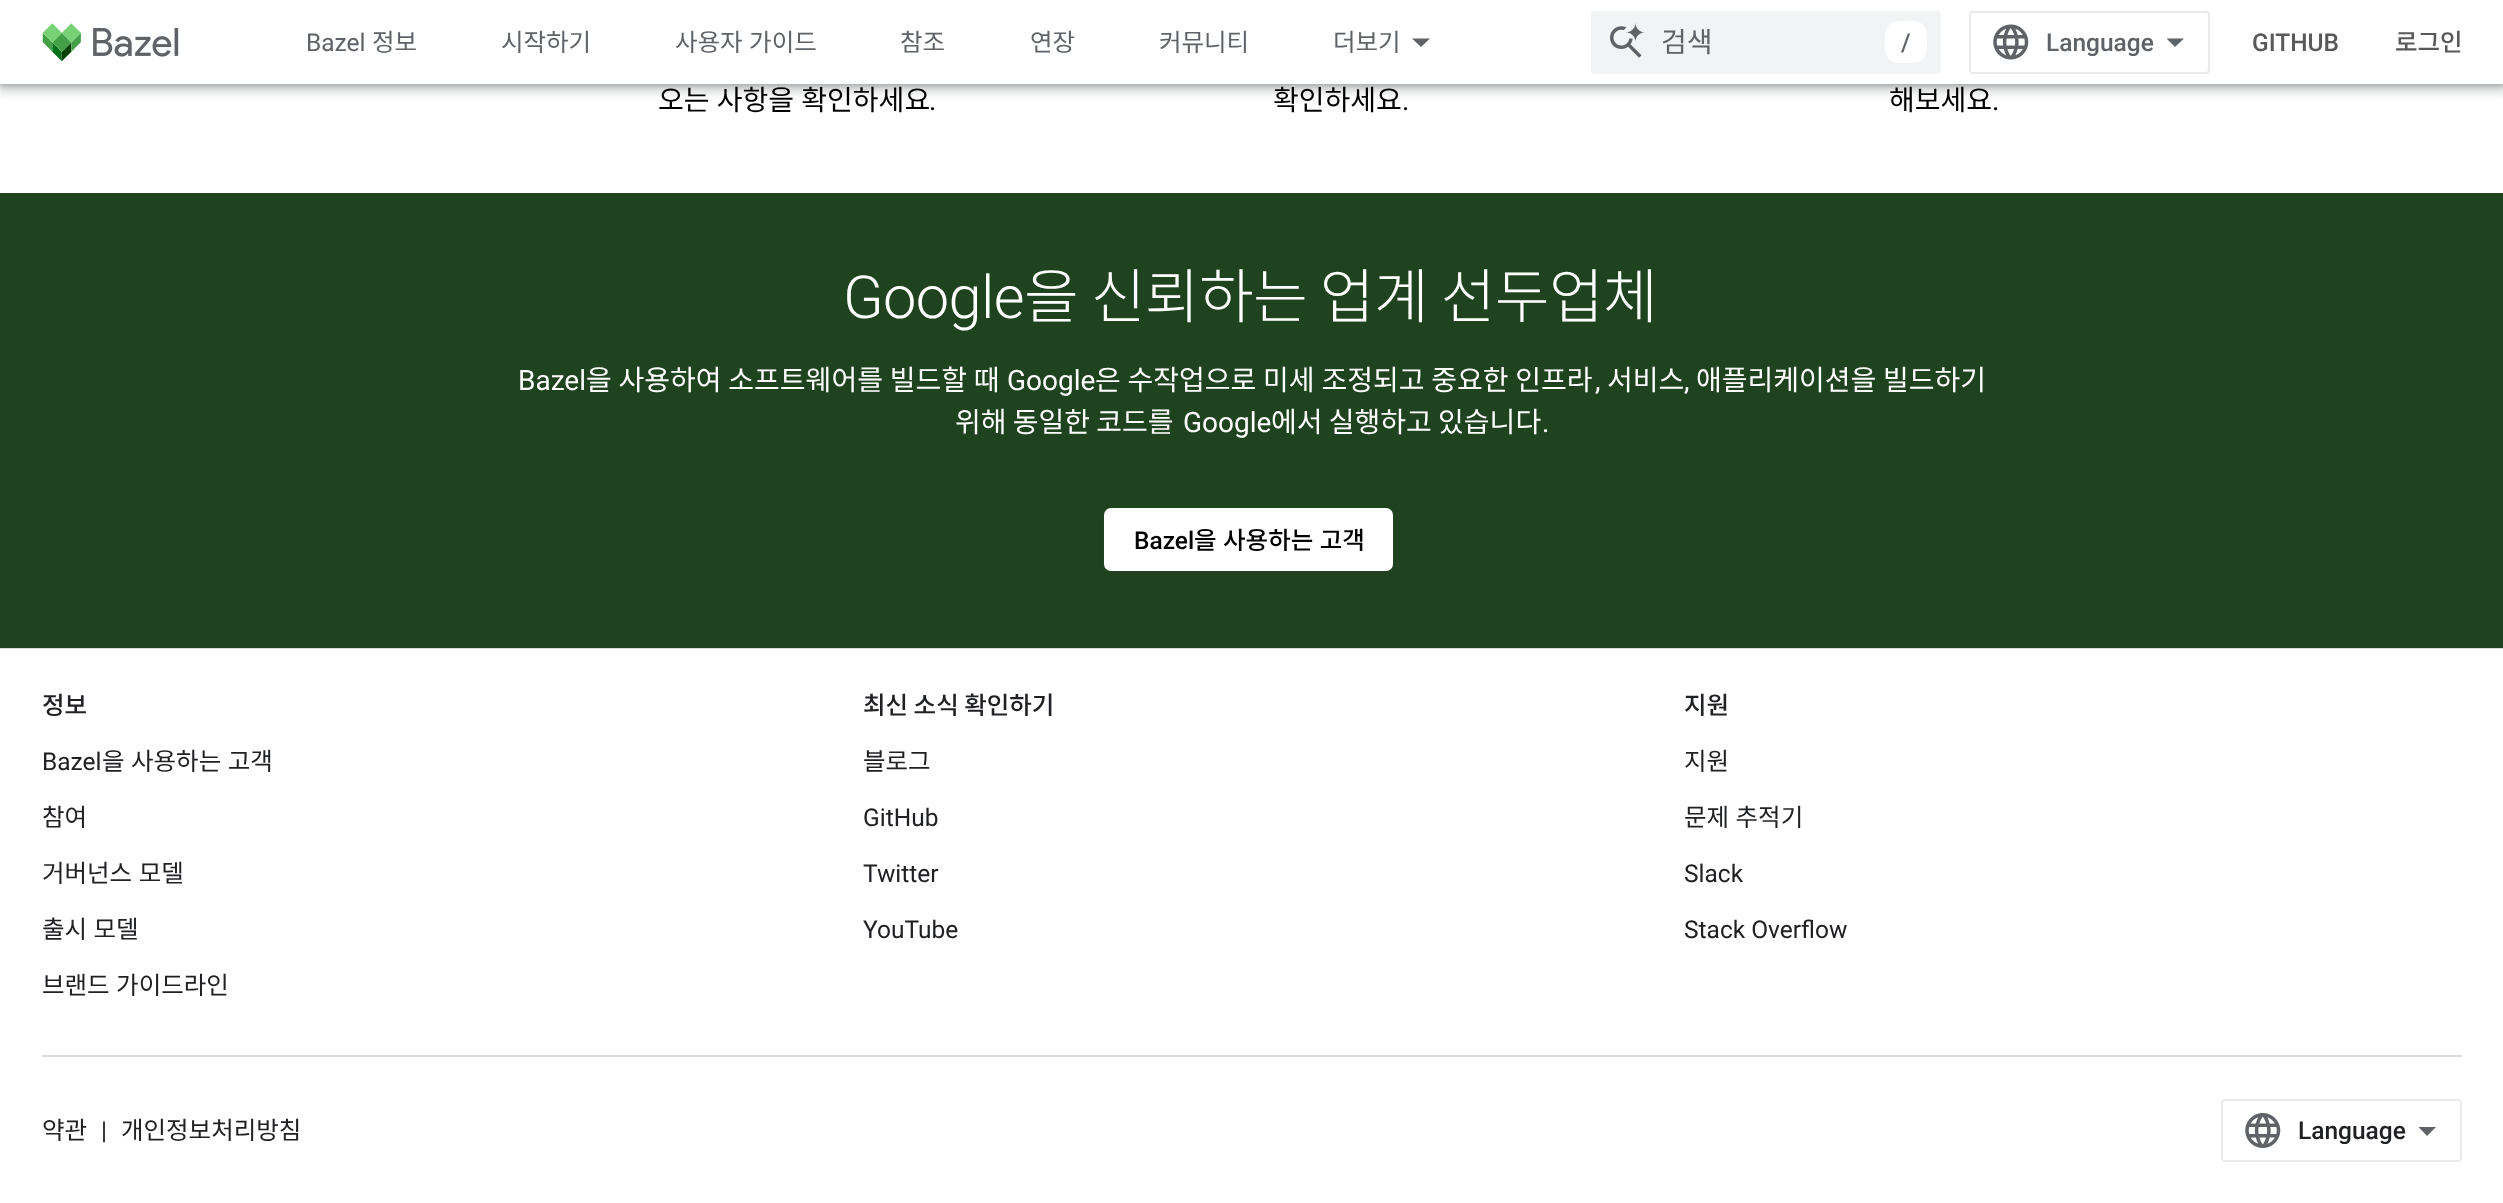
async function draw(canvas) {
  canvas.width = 2503
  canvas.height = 1203
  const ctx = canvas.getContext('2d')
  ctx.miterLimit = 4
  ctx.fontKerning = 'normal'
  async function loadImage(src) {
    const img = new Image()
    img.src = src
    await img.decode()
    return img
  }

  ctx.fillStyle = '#fff'
  ctx.fillRect(0, 0, 2503, 1203)
  ctx.fillStyle = '#3c404326'
  ctx.filter = 'blur(5px)'
  ctx.beginPath()
  ctx.rect(-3, 0, 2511, 91)
  ctx.fill()
  ctx.filter = 'none'
  ctx.fillStyle = '#3c40434d'
  ctx.filter = 'blur(2px)'
  ctx.beginPath()
  ctx.rect(0, 2, 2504, 84)
  ctx.fill()
  ctx.filter = 'none'
  ctx.fillStyle = '#3c404326'
  ctx.filter = 'blur(5px)'
  ctx.beginPath()
  ctx.rect(-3, 84, 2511, 7)
  ctx.fill()
  ctx.filter = 'none'
  ctx.fillStyle = '#fff'
  ctx.fillRect(0, 0, 2503, 84)
  ctx.drawImage(await loadImage('image0.png'), 42, 23, 137, 39)
  ctx.font = '24.5px Roboto'
  ctx.fillStyle = '#5f6368'
  ctx.fillText('Bazel', 306, 51)
  ctx.font = '24.5px Noto Sans KR'
  ctx.fillText('정보', 372, 51)
  ctx.fillText('시작하기', 501, 51)
  ctx.wordSpacing = '1px'
  ctx.fillText('사용자 가이드', 675, 51)
  ctx.wordSpacing = '0px'
  ctx.fillText('참조', 900, 51)
  ctx.fillText('연장', 1030, 51)
  ctx.fillText('커뮤니티', 1159, 51)
  ctx.fillText('더보기', 1333, 51)
  ctx.beginPath()
  ctx.moveTo(1412, 38.5)
  ctx.lineTo(1430, 38.5)
  ctx.lineTo(1421, 47)
  ctx.closePath()
  ctx.fill()
  ctx.fillStyle = '#f1f3f4'
  ctx.beginPath()
  ctx.roundRect(1591, 11, 350, 63, 4)
  ctx.fill()
  ctx.drawImage(await loadImage('image1.png'), 1610, 23, 35, 35)
  ctx.font = '28px Noto Sans KR'
  ctx.fillStyle = '#5f6368'
  ctx.fillText('검색', 1661, 52)
  ctx.fillStyle = '#fff'
  ctx.beginPath()
  ctx.roundRect(1885, 21, 42, 42, 14)
  ctx.fill()
  ctx.font = '500 24.5px Roboto'
  ctx.fillStyle = '#5f6368'
  ctx.fillText('/', 1901, 51)
  ctx.beginPath()
  ctx.roundRect(1970, 12, 239, 61, 3)
  ctx.strokeStyle = '#e8eaed'
  ctx.lineWidth = 2
  ctx.stroke()
  ctx.drawImage(await loadImage('image2.png'), 1993, 24, 36, 36)
  ctx.fillText('Language', 2046, 51)
  ctx.beginPath()
  ctx.moveTo(2175, 47)
  ctx.lineTo(2166.5, 38.5)
  ctx.lineTo(2184, 38.5)
  ctx.closePath()
  ctx.fill()
  ctx.fillStyle = '#595959'
  ctx.fillText('GITHUB', 2252, 51)
  ctx.font = '500 24.5px Noto Sans KR'
  ctx.fillText('로그인', 2395, 51)
  ctx.wordSpacing = '1px'
  ctx.font = '28px Noto Sans KR'
  ctx.fillStyle = '#000'
  ctx.fillText('오는 사항을 확인하세요', 658, 110)
  ctx.wordSpacing = '0px'
  ctx.font = '28px Roboto'
  ctx.fillText('.', 929, 110)
  ctx.font = '28px Noto Sans KR'
  ctx.fillText('확인하세요', 1273, 110)
  ctx.font = '28px Roboto'
  ctx.fillText('.', 1402, 110)
  ctx.font = '28px Noto Sans KR'
  ctx.fillText('해보세요', 1889, 110)
  ctx.font = '28px Roboto'
  ctx.fillText('.', 1992, 110)
  ctx.fillStyle = '#1e431e'
  ctx.fillRect(0, 193, 2503, 455)
  ctx.letterSpacing = '-0.6px'
  ctx.font = '300 59.5px Roboto'
  ctx.fillStyle = '#fff'
  ctx.fillText('Google', 843, 318)
  ctx.font = '300 59.5px Noto Sans KR'
  ctx.fillText('을 신뢰하는 업계 선두업체', 1024, 318)
  ctx.letterSpacing = '0px'
  ctx.font = '28px Roboto'
  ctx.fillText('Bazel', 518, 390)
  ctx.wordSpacing = '0.5px'
  ctx.font = '28px Noto Sans KR'
  ctx.fillText('을 사용하여 소프트웨어를 빌드할 때', 586, 390)
  ctx.wordSpacing = '0px'
  ctx.font = '28px Roboto'
  ctx.fillText('Google', 1007, 390)
  ctx.wordSpacing = '0.5px'
  ctx.font = '28px Noto Sans KR'
  ctx.fillText('은 수작업으로 미세 조정되고 중요한 인프라', 1095, 390)
  ctx.wordSpacing = '0px'
  ctx.font = '28px Roboto'
  ctx.fillText(',', 1595, 390)
  ctx.font = '28px Noto Sans KR'
  ctx.fillText('서비스', 1607, 390)
  ctx.font = '28px Roboto'
  ctx.fillText(',', 1684, 390)
  ctx.wordSpacing = '0.5px'
  ctx.font = '28px Noto Sans KR'
  ctx.fillText('애플리케이션을 빌드하기', 1696, 390)
  ctx.wordSpacing = '0px'
  ctx.fillText('위해 동일한 코드를', 955, 432)
  ctx.font = '28px Roboto'
  ctx.fillText('Google', 1183, 432)
  ctx.font = '28px Noto Sans KR'
  ctx.fillText('에서 실행하고 있습니다', 1271, 432)
  ctx.font = '28px Roboto'
  ctx.fillText('.', 1542, 432)
  ctx.fillStyle = '#3c40434d'
  ctx.filter = 'blur(2px)'
  ctx.beginPath()
  ctx.roundRect(1104, 509, 289, 63, 7)
  ctx.fill()
  ctx.filter = 'none'
  ctx.fillStyle = '#fff'
  ctx.beginPath()
  ctx.roundRect(1104, 508, 289, 63, 7)
  ctx.fill()
  ctx.font = '500 24.5px Roboto'
  ctx.fillStyle = '#000'
  ctx.fillText('Bazel', 1134, 549)
  ctx.wordSpacing = '1px'
  ctx.font = '500 24.5px Noto Sans KR'
  ctx.fillText('을 사용하는 고객', 1194, 549)
  ctx.fillStyle = '#dadce0'
  ctx.fillRect(0, 648, 2503, 1)
  ctx.fillRect(42, 1055, 2420, 2)
  ctx.wordSpacing = '0px'
  ctx.fillStyle = '#202124'
  ctx.fillText('정보', 42, 714)
  ctx.font = '24.5px Roboto'
  ctx.fillText('Bazel', 42, 770)
  ctx.wordSpacing = '1px'
  ctx.font = '24.5px Noto Sans KR'
  ctx.fillText('을 사용하는 고객', 102, 770)
  ctx.wordSpacing = '0px'
  ctx.fillText('참여', 42, 826)
  ctx.wordSpacing = '1px'
  ctx.fillText('거버넌스 모델', 42, 882)
  ctx.fillText('출시 모델', 42, 938)
  ctx.fillText('브랜드 가이드라인', 42, 994)
  ctx.wordSpacing = '0px'
  ctx.font = '500 24.5px Noto Sans KR'
  ctx.fillText('최신 소식 확인하기', 863, 714)
  ctx.font = '24.5px Noto Sans KR'
  ctx.fillText('블로그', 863, 770)
  ctx.font = '24.5px Roboto'
  ctx.fillText('GitHub', 863, 826)
  ctx.fillText('Twitter', 863, 882)
  ctx.fillText('YouTube', 863, 938)
  ctx.font = '500 24.5px Noto Sans KR'
  ctx.fillText('지원', 1684, 714)
  ctx.font = '24.5px Noto Sans KR'
  ctx.fillText('지원', 1684, 770)
  ctx.wordSpacing = '1px'
  ctx.fillText('문제 추적기', 1684, 826)
  ctx.wordSpacing = '0px'
  ctx.font = '24.5px Roboto'
  ctx.fillText('Slack', 1684, 882)
  ctx.fillText('Stack Overflow', 1684, 938)
  ctx.font = '24.5px Noto Sans KR'
  ctx.fillText('약관', 42, 1139)
  ctx.font = '24.5px Roboto'
  ctx.fillText('|', 101, 1139)
  ctx.font = '24.5px Noto Sans KR'
  ctx.fillText('개인정보처리방침', 121, 1139)
  ctx.beginPath()
  ctx.roundRect(2222, 1100, 239, 61, 3)
  ctx.stroke()
  ctx.drawImage(await loadImage('image3.png'), 2245, 1113, 36, 35)
  ctx.font = '500 24.5px Roboto'
  ctx.fillText('Language', 2298, 1139)
  ctx.fillStyle = '#5f6368'
  ctx.beginPath()
  ctx.moveTo(2427, 1136)
  ctx.lineTo(2418.5, 1127)
  ctx.lineTo(2436, 1127)
  ctx.closePath()
  ctx.fill()
}

draw(document.querySelector('canvas'))
